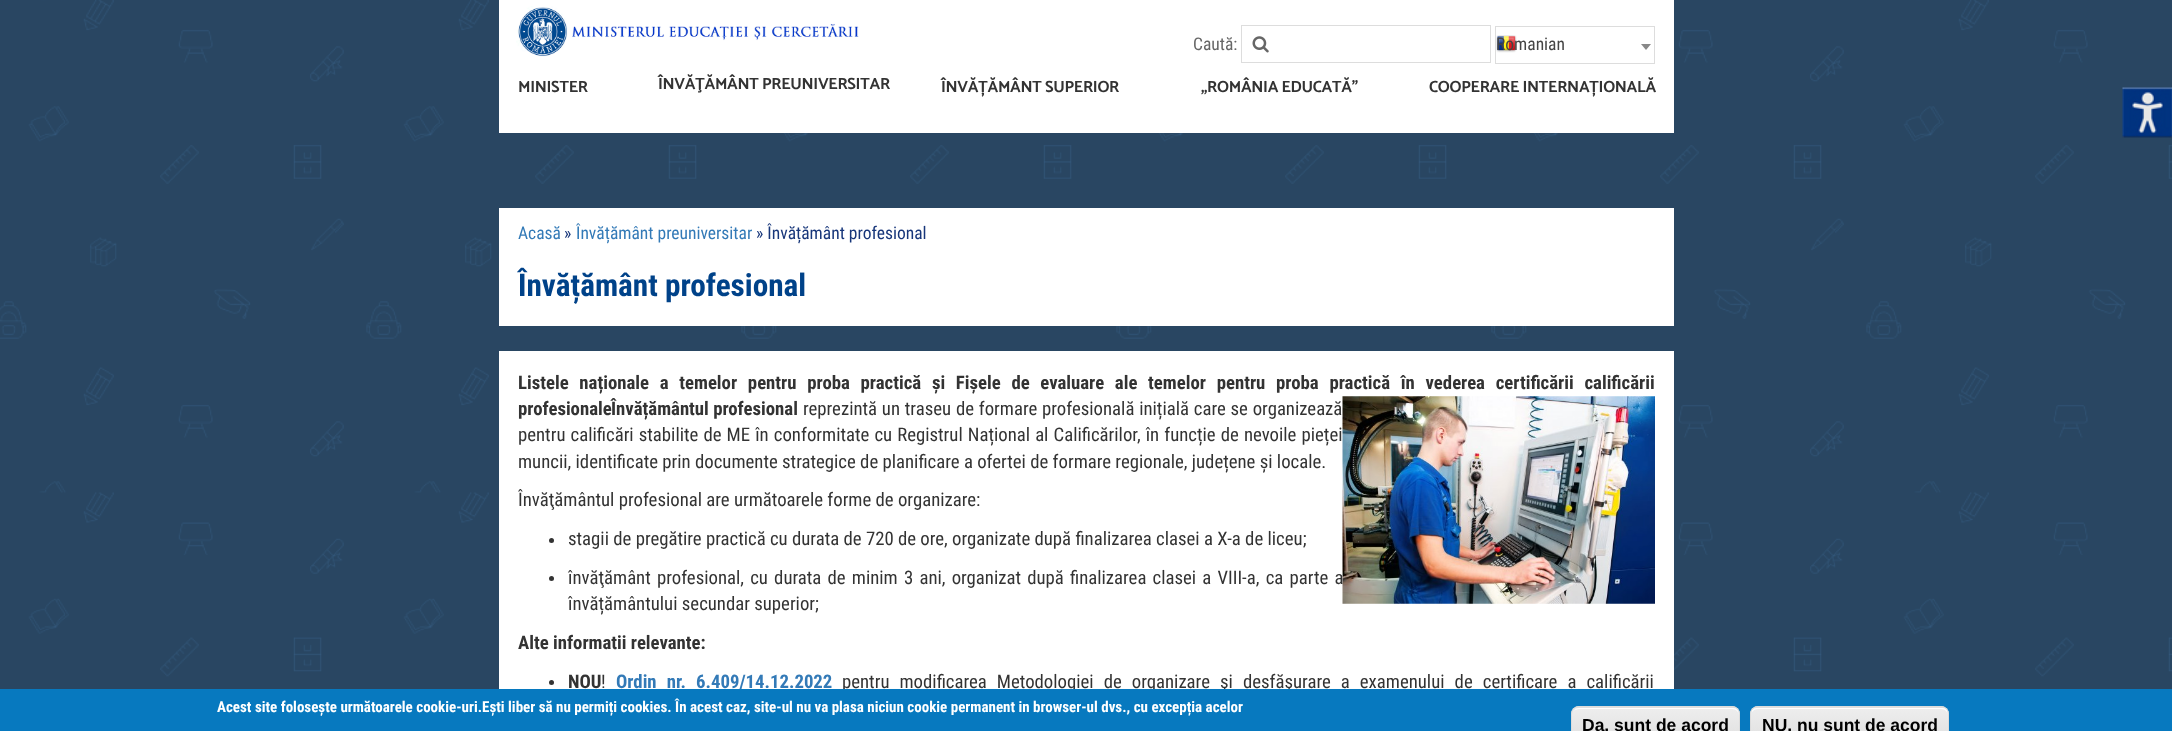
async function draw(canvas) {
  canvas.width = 2172
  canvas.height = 731
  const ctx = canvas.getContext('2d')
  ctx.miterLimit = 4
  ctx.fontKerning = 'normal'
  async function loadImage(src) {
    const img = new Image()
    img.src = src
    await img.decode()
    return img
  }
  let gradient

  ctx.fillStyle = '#fff'
  ctx.fillRect(0, 0, 2172, 731)
  ctx.drawImage(await loadImage('image0.png'), 0, 0, 2172, 689)
  ctx.fillRect(499, 0, 1175, 133)
  ctx.drawImage(await loadImage('image1.png'), 516, 6, 343, 51)
  ctx.font = '17.5px Roboto Condensed'
  ctx.fillStyle = '#666'
  ctx.fillText('Caută:', 1193, 50)
  ctx.strokeStyle = '#ddd'
  ctx.strokeRect(1241.5, 25.5, 249, 37)
  ctx.drawImage(await loadImage('image2.png'), 1252, 36, 17, 17)
  ctx.strokeRect(1495.5, 26.5, 159, 37)
  ctx.drawImage(await loadImage('image3.png'), 1496, 35, 21, 18)
  ctx.fillStyle = '#444'
  ctx.fillText('Romanian', 1496, 50)
  ctx.fillStyle = '#888'
  ctx.beginPath()
  ctx.moveTo(1641, 44)
  ctx.lineTo(1651, 44)
  ctx.lineTo(1646, 50)
  ctx.closePath()
  ctx.fill()
  ctx.letterSpacing = '-0.3px'
  ctx.font = 'bold 16.25px Catamaran'
  ctx.fillStyle = '#333'
  ctx.fillText('MINISTER', 518, 92)
  ctx.fillText('ÎNVĂŢĂMÂNT PREUNIVERSITAR', 658, 89)
  ctx.fillText('ÎNVĂȚĂMÂNT SUPERIOR', 941, 92)
  ctx.fillText('„ROMÂNIA EDUCATĂ”', 1201, 92)
  ctx.fillText('COOPERARE INTERNAȚIONALĂ', 1429, 92)
  ctx.fillStyle = '#fff'
  ctx.fillRect(499, 208, 1175, 118)
  ctx.letterSpacing = '0px'
  ctx.font = '17.5px Roboto Condensed'
  ctx.fillStyle = '#337ab7'
  ctx.fillText('Acasă', 518, 239)
  ctx.fillStyle = '#17367a'
  ctx.fillText('»', 564, 239)
  ctx.fillStyle = '#337ab7'
  ctx.fillText('Învățământ preuniversitar', 576, 239)
  ctx.fillStyle = '#17367a'
  ctx.fillText('» Învățământ profesional', 756, 239)
  ctx.drawImage(await loadImage('image4.png'), 2122, 87, 50, 51)
  ctx.font = 'bold 31.25px Roboto Condensed'
  ctx.fillStyle = '#004289'
  ctx.fillText('Învățământ profesional', 518, 296)
  ctx.fillStyle = '#fff'
  ctx.fillRect(499, 351, 1175, 338)
  ctx.wordSpacing = '6.4px'
  ctx.font = 'bold 18.75px Roboto Condensed'
  ctx.fillStyle = '#333'
  ctx.fillText('Listele naționale a temelor pentru proba practică și Fișele de evaluare ale temelor pentru proba practică în vederea certificării calificării', 518, 389)
  ctx.wordSpacing = '0px'
  ctx.fillText('profesionale', 518, 415)
  ctx.fillText('Învățământul profesional', 611, 415)
  ctx.drawImage(await loadImage('image5.png'), 1342, 396, 313, 208)
  ctx.wordSpacing = '0.5px'
  ctx.font = '18.75px Roboto Condensed'
  ctx.fillText('reprezintă un traseu de formare profesională inițială care se organizează', 803, 415)
  ctx.wordSpacing = '0.8px'
  ctx.fillText('pentru calificări stabilite de ME în conformitate cu Registrul Național al Calificărilor, în funcție de nevoile pieței', 518, 441)
  ctx.wordSpacing = '0px'
  ctx.fillText('muncii, identificate prin documente strategice de planificare a ofertei de formare regionale, județene și locale.', 518, 468)
  ctx.fillText('Învăţământul profesional are următoarele forme de organizare:', 518, 506)
  ctx.beginPath()
  ctx.arc(551.5, 540.5, 2.5, 0, 2 * Math.PI)
  ctx.fill()
  ctx.fillText('stagii de pregătire practică cu durata de 720 de ore, organizate după finalizarea clasei a X-a de liceu;', 568, 545)
  ctx.beginPath()
  ctx.arc(551.5, 578.5, 2.5, 0, 2 * Math.PI)
  ctx.fill()
  ctx.wordSpacing = '1.9px'
  ctx.fillText('învăţământ profesional, cu durata de minim 3 ani, organizat după finalizarea clasei a VIII-a, ca parte a', 568, 584)
  ctx.wordSpacing = '0px'
  ctx.fillText('învățământului secundar superior;', 568, 610)
  ctx.font = 'bold 18.75px Roboto Condensed'
  ctx.fillText('Alte informatii relevante:', 518, 649)
  ctx.beginPath()
  ctx.arc(551.5, 682.5, 2.5, 0, 2 * Math.PI)
  ctx.fill()
  ctx.fillText('NOU', 568, 688)
  ctx.font = '18.75px Roboto Condensed'
  ctx.fillText('!', 601, 688)
  ctx.wordSpacing = '5.75px'
  ctx.font = 'bold 18.75px Roboto Condensed'
  ctx.fillStyle = '#337ab7'
  ctx.fillText('Ordin nr. 6.409/14.12.2022', 616, 688)
  ctx.font = '18.75px Roboto Condensed'
  ctx.fillStyle = '#333'
  ctx.fillText('pentru modificarea Metodologiei de organizare şi desfăşurare a examenului de certificare a calificării', 842, 688)
  ctx.fillStyle = '#0779bf'
  ctx.fillRect(0, 689, 2172, 42)
  ctx.wordSpacing = '0px'
  ctx.font = 'bold 15px Roboto Condensed'
  ctx.fillStyle = '#fff'
  ctx.fillText('Acest site folosește următoarele cookie-uri.Ești liber să nu permiți cookies. În acest caz, site-ul nu va plasa niciun cookie permanent in browser-ul dvs., cu excepția acelor', 217, 712)
  ctx.save()
  ctx.beginPath()
  ctx.roundRect(1571, 706, 169, 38, 8)
  ctx.clip()
  gradient = ctx.createLinearGradient(1573, 673, 1573, 708)
  gradient.addColorStop(0.05, '#ededed')
  gradient.addColorStop(1, '#dfdfdf')
  ctx.fillStyle = gradient
  ctx.fillRect(1571, 706, 169, 2)
  gradient = ctx.createLinearGradient(1573, 708, 1573, 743)
  gradient.addColorStop(0.05, '#ededed')
  gradient.addColorStop(1, '#dfdfdf')
  ctx.fillStyle = gradient
  ctx.fillRect(1571, 708, 169, 23)
  ctx.restore()
  ctx.beginPath()
  ctx.moveTo(1579, 709)
  ctx.lineTo(1732, 709)
  ctx.bezierCurveTo(1736, 709, 1739, 712, 1739, 715)
  ctx.lineTo(1739, 714)
  ctx.bezierCurveTo(1739, 711, 1736, 708, 1733, 708)
  ctx.lineTo(1579, 708)
  ctx.bezierCurveTo(1577, 708, 1575, 709, 1574, 711)
  ctx.bezierCurveTo(1575, 710, 1577, 709, 1579, 709)
  ctx.closePath()
  ctx.fill()
  ctx.beginPath()
  ctx.roundRect(1571.5, 706.5, 168, 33, 7.5)
  ctx.strokeStyle = '#dcdcdc'
  ctx.stroke()
  ctx.font = 'bold 17.5px Liberation Sans'
  ctx.fillStyle = '#000'
  ctx.fillText('Da, sunt de acord', 1582, 731)
  ctx.save()
  ctx.beginPath()
  ctx.roundRect(1750, 706, 199, 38, 8)
  ctx.clip()
  gradient = ctx.createLinearGradient(1751, 673, 1751, 708)
  gradient.addColorStop(0.05, '#ededed')
  gradient.addColorStop(1, '#dfdfdf')
  ctx.fillStyle = gradient
  ctx.fillRect(1750, 706, 199, 2)
  gradient = ctx.createLinearGradient(1751, 708, 1751, 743)
  gradient.addColorStop(0.05, '#ededed')
  gradient.addColorStop(1, '#dfdfdf')
  ctx.fillStyle = gradient
  ctx.fillRect(1750, 708, 199, 23)
  ctx.restore()
  ctx.fillStyle = '#fff'
  ctx.beginPath()
  ctx.moveTo(1758, 709)
  ctx.lineTo(1941, 709)
  ctx.bezierCurveTo(1945, 709, 1948, 712, 1948, 715)
  ctx.bezierCurveTo(1948, 712, 1947, 709, 1943, 708)
  ctx.lineTo(1757, 708)
  ctx.bezierCurveTo(1753, 708, 1751, 711, 1751, 715)
  ctx.bezierCurveTo(1751, 712, 1754, 709, 1758, 709)
  ctx.closePath()
  ctx.fill()
  ctx.beginPath()
  ctx.roundRect(1750.5, 706.5, 198, 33, 7.5)
  ctx.stroke()
  ctx.fillStyle = '#000'
  ctx.fillText('NU, nu sunt de acord', 1762, 731)
}

draw(document.querySelector('canvas'))
